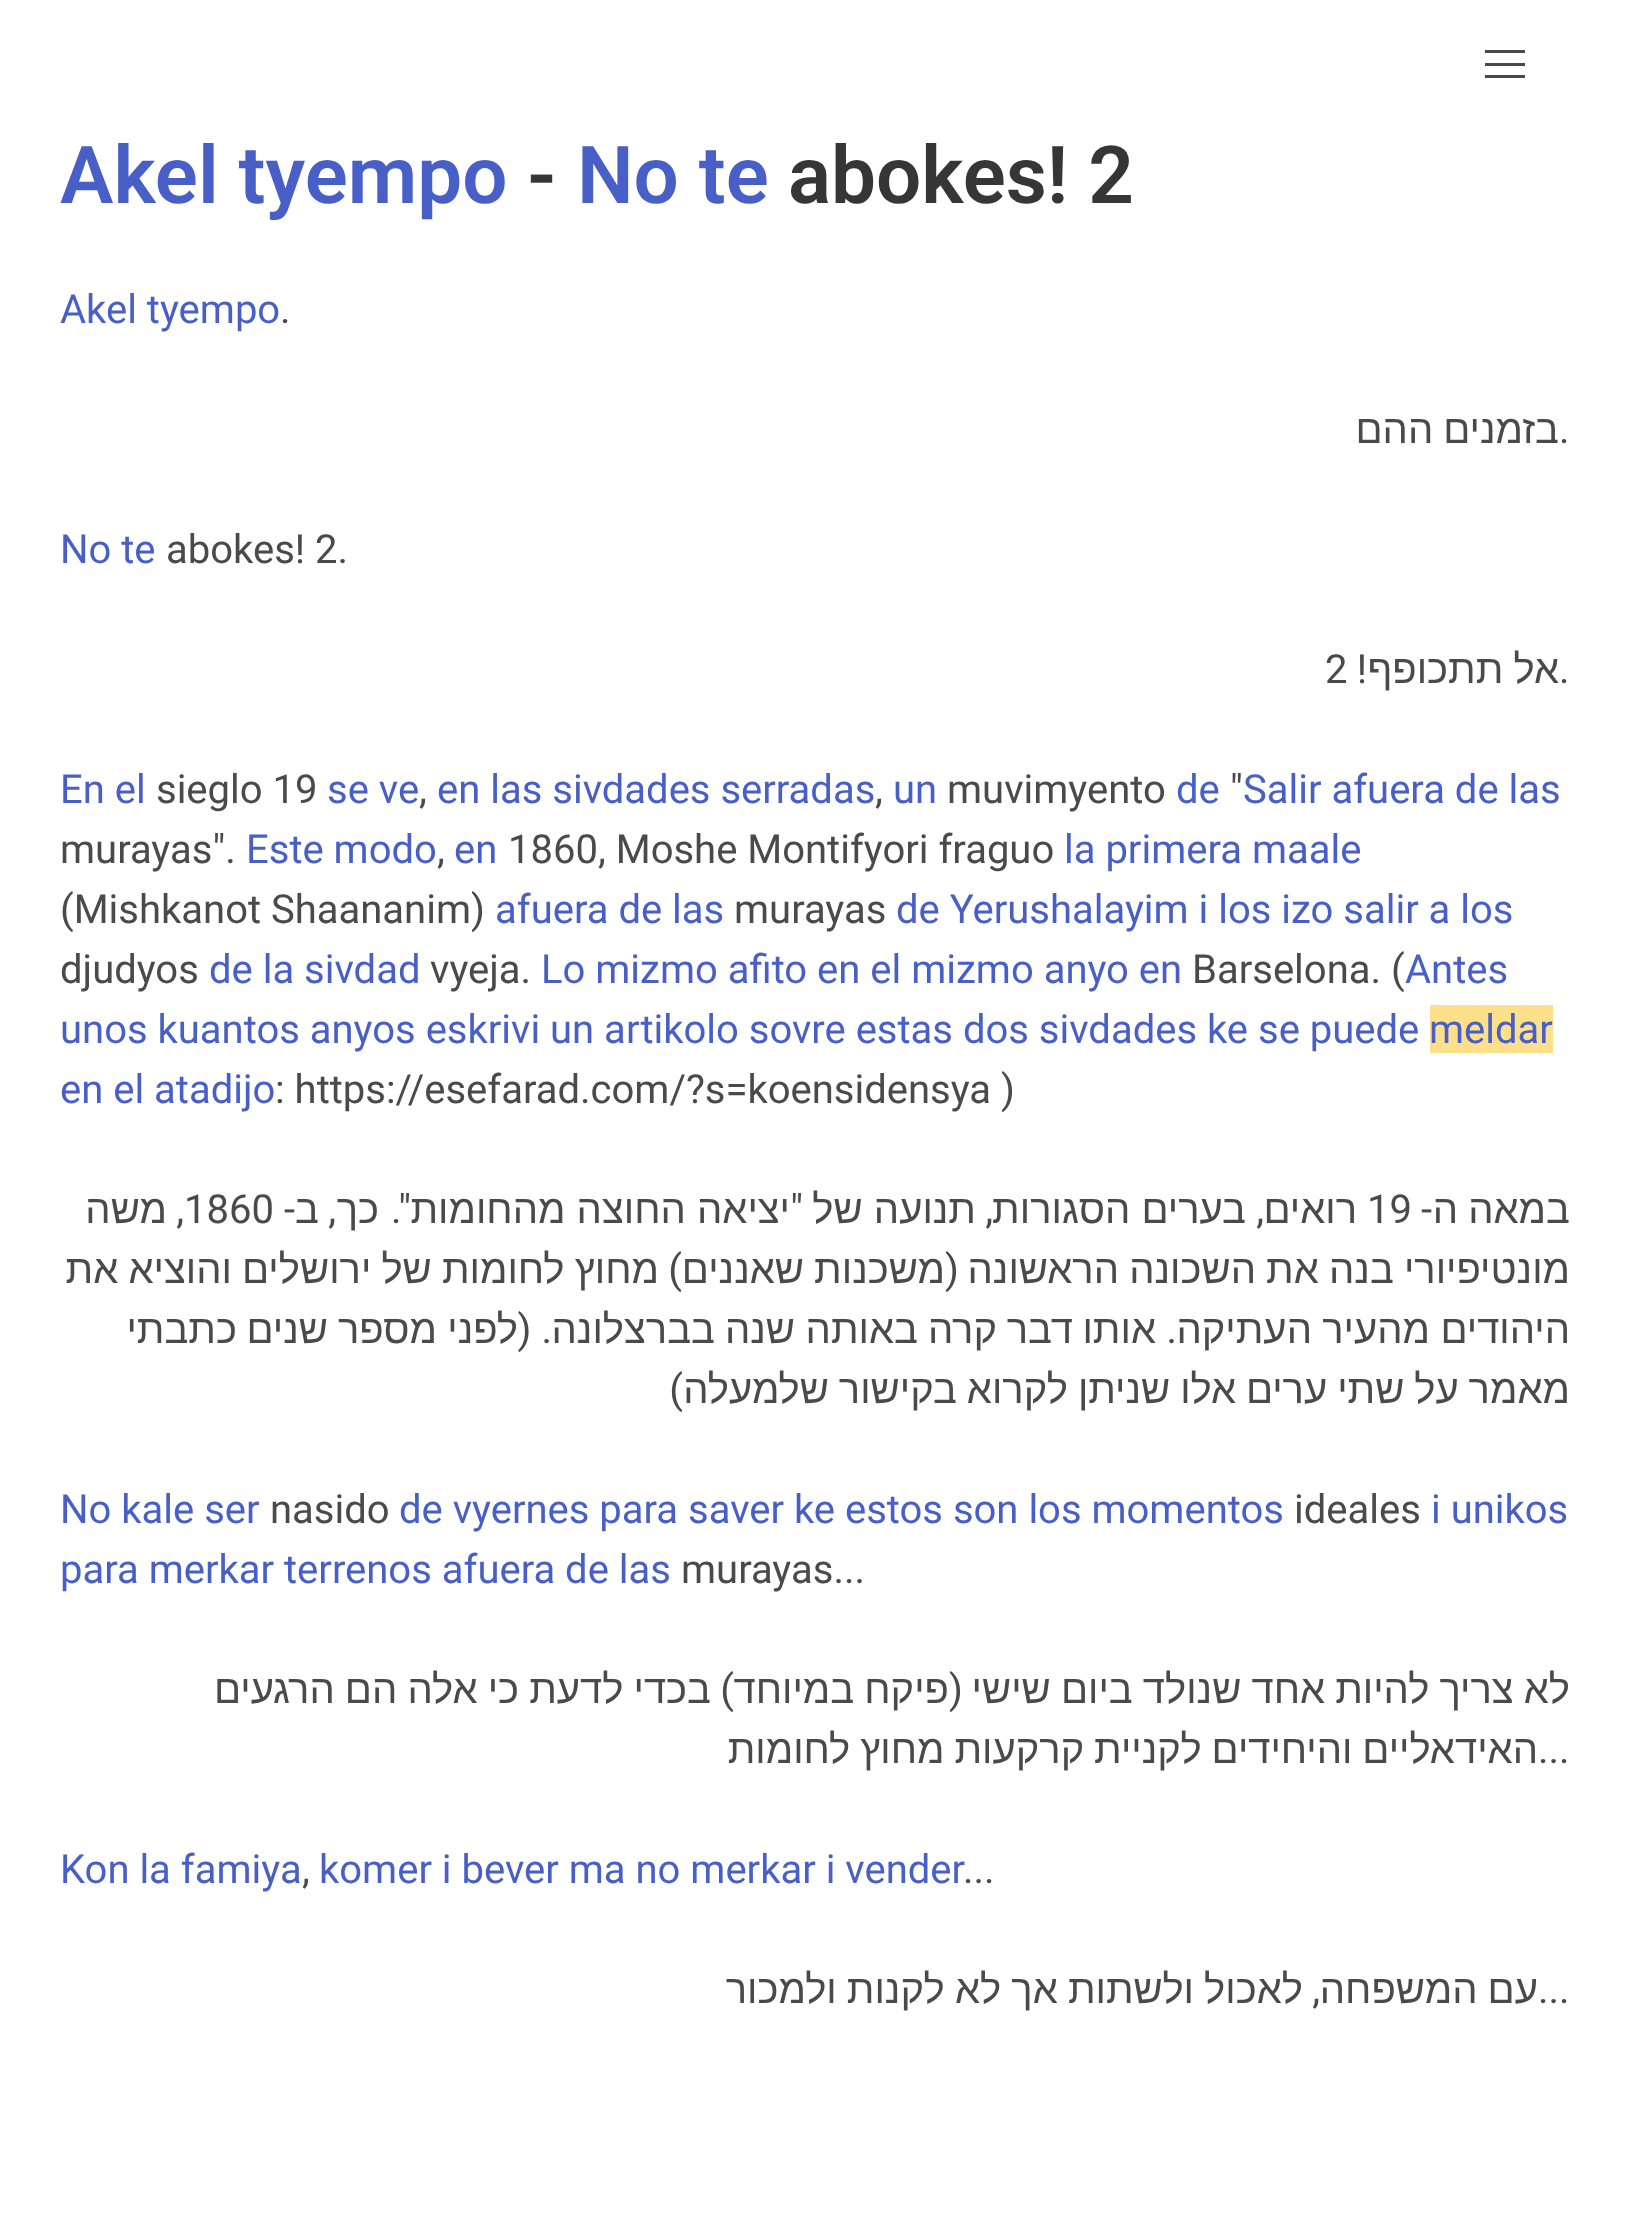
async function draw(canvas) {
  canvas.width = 1628
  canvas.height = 2219
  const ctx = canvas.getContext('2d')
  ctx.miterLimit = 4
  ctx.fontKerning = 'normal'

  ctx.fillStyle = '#fff'
  ctx.fillRect(0, 0, 1628, 2219)
  ctx.fillStyle = '#4a4a4a'
  ctx.fillRect(1485, 50, 40, 3)
  ctx.fillRect(1485, 63, 40, 3)
  ctx.fillRect(1485, 75, 40, 3)
  ctx.font = '600 80px Roboto'
  ctx.fillStyle = '#485fc7'
  ctx.fillText('Akel tyempo', 60, 203)
  ctx.fillStyle = '#363636'
  ctx.fillText('-', 527, 203)
  ctx.fillStyle = '#485fc7'
  ctx.fillText('No te', 577, 203)
  ctx.fillStyle = '#363636'
  ctx.fillText('abokes! 2', 788, 203)
  ctx.font = '40px Roboto'
  ctx.fillStyle = '#485fc7'
  ctx.fillText('Akel tyempo', 60, 323)
  ctx.fillStyle = '#4a4a4a'
  ctx.fillText('.', 280, 323)
  ctx.wordSpacing = '-1.25px'
  ctx.direction = 'rtl'
  ctx.font = '40px Liberation Sans'
  ctx.fillText('בזמנים ההם', 1559, 443)
  ctx.wordSpacing = '0px'
  ctx.direction = 'ltr'
  ctx.font = '40px Roboto'
  ctx.fillText('.', 1559, 443)
  ctx.fillStyle = '#485fc7'
  ctx.fillText('No te', 60, 563)
  ctx.fillStyle = '#4a4a4a'
  ctx.fillText('abokes! 2.', 166, 563)
  ctx.fillText('2', 1325, 683)
  ctx.direction = 'rtl'
  ctx.fillText('!', 1367, 683)
  ctx.wordSpacing = '-1px'
  ctx.font = '40px Liberation Sans'
  ctx.fillText('אל תתכופף', 1559, 683)
  ctx.wordSpacing = '0px'
  ctx.direction = 'ltr'
  ctx.font = '40px Roboto'
  ctx.fillText('.', 1559, 683)
  ctx.fillStyle = '#485fc7'
  ctx.fillText('En el', 60, 803)
  ctx.fillStyle = '#4a4a4a'
  ctx.fillText('sieglo 19', 156, 803)
  ctx.fillStyle = '#485fc7'
  ctx.fillText('se ve', 327, 803)
  ctx.fillStyle = '#4a4a4a'
  ctx.fillText(',', 419, 803)
  ctx.fillStyle = '#485fc7'
  ctx.fillText('en las sivdades serradas', 437, 803)
  ctx.fillStyle = '#4a4a4a'
  ctx.fillText(',', 875, 803)
  ctx.fillStyle = '#485fc7'
  ctx.fillText('un', 893, 803)
  ctx.fillStyle = '#4a4a4a'
  ctx.fillText('muvimyento', 947, 803)
  ctx.fillStyle = '#485fc7'
  ctx.fillText('de', 1176, 803)
  ctx.fillStyle = '#4a4a4a'
  ctx.fillText('"', 1230, 803)
  ctx.fillStyle = '#485fc7'
  ctx.fillText('Salir afuera de las', 1243, 803)
  ctx.fillStyle = '#4a4a4a'
  ctx.fillText('murayas".', 60, 863)
  ctx.fillStyle = '#485fc7'
  ctx.fillText('Este modo', 246, 863)
  ctx.fillStyle = '#4a4a4a'
  ctx.fillText(',', 437, 863)
  ctx.fillStyle = '#485fc7'
  ctx.fillText('en', 454, 863)
  ctx.fillStyle = '#4a4a4a'
  ctx.fillText('1860, Moshe Montifyori fraguo', 508, 863)
  ctx.fillStyle = '#485fc7'
  ctx.fillText('la primera maale', 1064, 863)
  ctx.fillStyle = '#4a4a4a'
  ctx.fillText('(Mishkanot Shaananim)', 60, 923)
  ctx.fillStyle = '#485fc7'
  ctx.fillText('afuera de las', 495, 923)
  ctx.fillStyle = '#4a4a4a'
  ctx.fillText('murayas', 734, 923)
  ctx.fillStyle = '#485fc7'
  ctx.fillText('de Yerushalayim i los izo salir a los', 896, 923)
  ctx.fillStyle = '#4a4a4a'
  ctx.fillText('djudyos', 60, 983)
  ctx.fillStyle = '#485fc7'
  ctx.fillText('de la sivdad', 209, 983)
  ctx.fillStyle = '#4a4a4a'
  ctx.fillText('vyeja.', 430, 983)
  ctx.fillStyle = '#485fc7'
  ctx.fillText('Lo mizmo afito en el mizmo anyo en', 541, 983)
  ctx.fillStyle = '#4a4a4a'
  ctx.fillText('Barselona. (', 1192, 983)
  ctx.fillStyle = '#485fc7'
  ctx.fillText('Antes', 1405, 983)
  ctx.fillText('unos kuantos anyos eskrivi un artikolo sovre estas dos sivdades ke se puede', 60, 1043)
  ctx.fillStyle = '#ffe08a'
  ctx.fillRect(1430, 1005, 123, 48)
  ctx.fillStyle = '#485fc7'
  ctx.fillText('meldar', 1429, 1043)
  ctx.fillText('en el atadijo', 60, 1103)
  ctx.fillStyle = '#4a4a4a'
  ctx.fillText(': https://esefarad.com/?s=koensidensya )', 275, 1103)
  ctx.direction = 'rtl'
  ctx.font = '40px Liberation Sans'
  ctx.fillText('משה', 167, 1223)
  ctx.direction = 'ltr'
  ctx.font = '40px Roboto'
  ctx.fillText('1860', 184, 1223)
  ctx.direction = 'rtl'
  ctx.fillText('-', 295, 1223)
  ctx.font = '40px Liberation Sans'
  ctx.fillText('ב', 319, 1223)
  ctx.fillText('כך', 379, 1223)
  ctx.font = '40px Roboto'
  ctx.fillText('".', 411, 1223)
  ctx.font = '40px Liberation Sans'
  ctx.fillText('יציאה החוצה מהחומות', 790, 1223)
  ctx.font = '40px Roboto'
  ctx.fillText('"', 803, 1223)
  ctx.font = '40px Liberation Sans'
  ctx.fillText('תנועה של', 976, 1223)
  ctx.fillText('בערים הסגורות', 1246, 1223)
  ctx.fillText('רואים', 1357, 1223)
  ctx.direction = 'ltr'
  ctx.font = '40px Roboto'
  ctx.fillText('19', 1367, 1223)
  ctx.direction = 'rtl'
  ctx.fillText('-', 1432, 1223)
  ctx.wordSpacing = '-1px'
  ctx.font = '40px Liberation Sans'
  ctx.fillText('במאה ה', 1570, 1223)
  ctx.wordSpacing = '0px'
  ctx.font = '40px Roboto'
  ctx.fillText(',', 184, 1223)
  ctx.fillText(',', 336, 1223)
  ctx.fillText(',', 993, 1223)
  ctx.fillText(',', 1264, 1223)
  ctx.wordSpacing = '-1px'
  ctx.font = '40px Liberation Sans'
  ctx.fillText('מחוץ לחומות של ירושלים והוציא את', 659, 1283)
  ctx.wordSpacing = '0px'
  ctx.font = '40px Roboto'
  ctx.fillText(')', 682, 1283)
  ctx.wordSpacing = '-1px'
  ctx.font = '40px Liberation Sans'
  ctx.fillText('משכנות שאננים', 945, 1283)
  ctx.wordSpacing = '0px'
  ctx.font = '40px Roboto'
  ctx.fillText('(', 959, 1283)
  ctx.wordSpacing = '-1px'
  ctx.font = '40px Liberation Sans'
  ctx.fillText('מונטיפיורי בנה את השכונה הראשונה', 1570, 1283)
  ctx.wordSpacing = '0px'
  ctx.fillText('כתבתי', 237, 1343)
  ctx.fillText('שנים', 328, 1343)
  ctx.fillText('מספר', 437, 1343)
  ctx.fillText('לפני', 518, 1343)
  ctx.font = '40px Roboto'
  ctx.fillText('. (', 552, 1343)
  ctx.font = '40px Liberation Sans'
  ctx.fillText('בברצלונה', 715, 1343)
  ctx.fillText('שנה', 795, 1343)
  ctx.fillText('באותה', 918, 1343)
  ctx.fillText('קרה', 997, 1343)
  ctx.fillText('דבר', 1073, 1343)
  ctx.fillText('אותו', 1156, 1343)
  ctx.font = '40px Roboto'
  ctx.fillText('.', 1177, 1343)
  ctx.font = '40px Liberation Sans'
  ctx.fillText('העתיקה', 1312, 1343)
  ctx.fillText('מהעיר', 1430, 1343)
  ctx.fillText('היהודים', 1570, 1343)
  ctx.font = '40px Roboto'
  ctx.fillText(')', 683, 1403)
  ctx.wordSpacing = '-1.25px'
  ctx.font = '40px Liberation Sans'
  ctx.fillText('מאמר על שתי ערים אלו שניתן לקרוא בקישור שלמעלה', 1570, 1403)
  ctx.wordSpacing = '0px'
  ctx.direction = 'ltr'
  ctx.font = '40px Roboto'
  ctx.fillStyle = '#485fc7'
  ctx.fillText('No kale ser', 60, 1523)
  ctx.fillStyle = '#4a4a4a'
  ctx.fillText('nasido', 270, 1523)
  ctx.fillStyle = '#485fc7'
  ctx.fillText('de vyernes para saver ke estos son los momentos', 399, 1523)
  ctx.fillStyle = '#4a4a4a'
  ctx.fillText('ideales', 1294, 1523)
  ctx.fillStyle = '#485fc7'
  ctx.fillText('i unikos', 1431, 1523)
  ctx.fillText('para merkar terrenos afuera de las', 60, 1583)
  ctx.fillStyle = '#4a4a4a'
  ctx.fillText('murayas...', 681, 1583)
  ctx.wordSpacing = '-1px'
  ctx.direction = 'rtl'
  ctx.font = '40px Liberation Sans'
  ctx.fillText('בכדי לדעת כי אלה הם הרגעים', 711, 1703)
  ctx.wordSpacing = '0px'
  ctx.font = '40px Roboto'
  ctx.fillText(')', 734, 1703)
  ctx.wordSpacing = '-1px'
  ctx.font = '40px Liberation Sans'
  ctx.fillText('פיקח במיוחד', 949, 1703)
  ctx.wordSpacing = '0px'
  ctx.font = '40px Roboto'
  ctx.fillText('(', 963, 1703)
  ctx.wordSpacing = '-1px'
  ctx.font = '40px Liberation Sans'
  ctx.fillText('לא צריך להיות אחד שנולד ביום שישי', 1570, 1703)
  ctx.wordSpacing = '-1.25px'
  ctx.fillText('האידאליים והיחידים לקניית קרקעות מחוץ לחומות', 1538, 1763)
  ctx.wordSpacing = '0px'
  ctx.direction = 'ltr'
  ctx.font = '40px Roboto'
  ctx.fillText('...', 1538, 1763)
  ctx.fillStyle = '#485fc7'
  ctx.fillText('Kon la famiya', 60, 1883)
  ctx.fillStyle = '#4a4a4a'
  ctx.fillText(',', 302, 1883)
  ctx.fillStyle = '#485fc7'
  ctx.fillText('komer i bever ma no merkar i vender', 319, 1883)
  ctx.fillStyle = '#4a4a4a'
  ctx.fillText('...', 963, 1883)
  ctx.wordSpacing = '-1px'
  ctx.direction = 'rtl'
  ctx.font = '40px Liberation Sans'
  ctx.fillText('לאכול ולשתות אך לא לקנות ולמכור', 1303, 2003)
  ctx.wordSpacing = '0px'
  ctx.font = '40px Roboto'
  ctx.fillText(',', 1320, 2003)
  ctx.wordSpacing = '-1px'
  ctx.font = '40px Liberation Sans'
  ctx.fillText('עם המשפחה', 1538, 2003)
  ctx.wordSpacing = '0px'
  ctx.direction = 'ltr'
  ctx.font = '40px Roboto'
  ctx.fillText('...', 1538, 2003)
}

draw(document.querySelector('canvas'))
